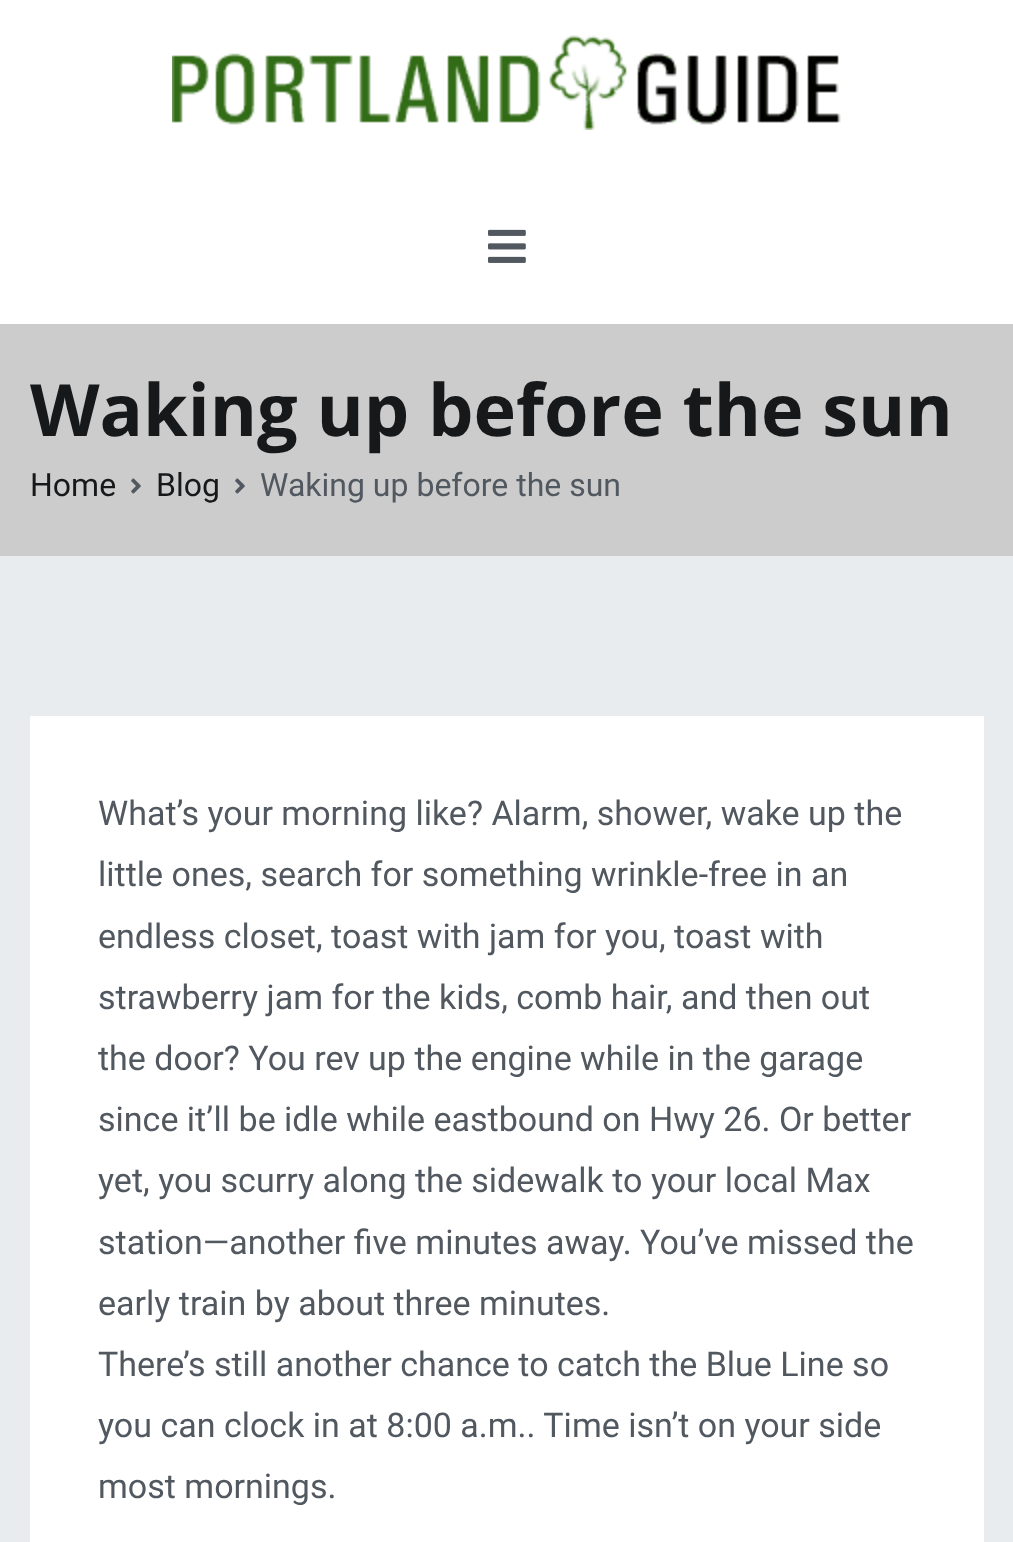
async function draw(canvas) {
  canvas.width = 1013
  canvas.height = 1542
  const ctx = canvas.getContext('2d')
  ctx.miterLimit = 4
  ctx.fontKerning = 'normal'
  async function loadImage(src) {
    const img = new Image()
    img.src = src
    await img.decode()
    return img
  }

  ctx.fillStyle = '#e9ecef'
  ctx.fillRect(0, 0, 1013, 1542)
  ctx.fillStyle = '#fff'
  ctx.fillRect(0, 0, 1013, 324)
  ctx.drawImage(await loadImage('image0.png'), 172, 35, 669, 95)
  ctx.drawImage(await loadImage('image1.png'), 488, 229, 38, 34)
  ctx.fillStyle = '#ccc'
  ctx.fillRect(0, 324, 1013, 232)
  ctx.font = 'bold 72px Open Sans'
  ctx.fillStyle = '#16181a'
  ctx.fillText('Waking up before the sun', 30, 436)
  ctx.font = '32px Roboto'
  ctx.fillText('Home', 30, 496)
  ctx.drawImage(await loadImage('image2.png'), 131, 478, 10, 16)
  ctx.fillText('Blog', 156, 496)
  ctx.drawImage(await loadImage('image2.png'), 235, 478, 10, 16)
  ctx.fillStyle = '#51585f'
  ctx.fillText('Waking up before the sun', 260, 496)
  ctx.fillStyle = '#fff'
  ctx.fillRect(30, 716, 954, 826)
  ctx.font = '34px Roboto'
  ctx.fillStyle = '#51585f'
  ctx.fillText('What’s your morning like? Alarm, shower, wake up the', 98, 825)
  ctx.fillText('little ones, search for something wrinkle-free in an', 98, 886)
  ctx.fillText('endless closet, toast with jam for you, toast with', 98, 948)
  ctx.fillText('strawberry jam for the kids, comb hair, and then out', 98, 1009)
  ctx.fillText('the door? You rev up the engine while in the garage', 98, 1070)
  ctx.fillText('since it’ll be idle while eastbound on Hwy 26. Or better', 98, 1131)
  ctx.fillText('yet, you scurry along the sidewalk to your local Max', 98, 1192)
  ctx.fillText('station—another five minutes away. You’ve missed the', 98, 1254)
  ctx.fillText('early train by about three minutes.', 98, 1315)
  ctx.fillText('There’s still another chance to catch the Blue Line so', 98, 1376)
  ctx.fillText('you can clock in at 8:00 a.m.. Time isn’t on your side', 98, 1437)
  ctx.fillText('most mornings.', 98, 1498)
}

draw(document.querySelector('canvas'))
